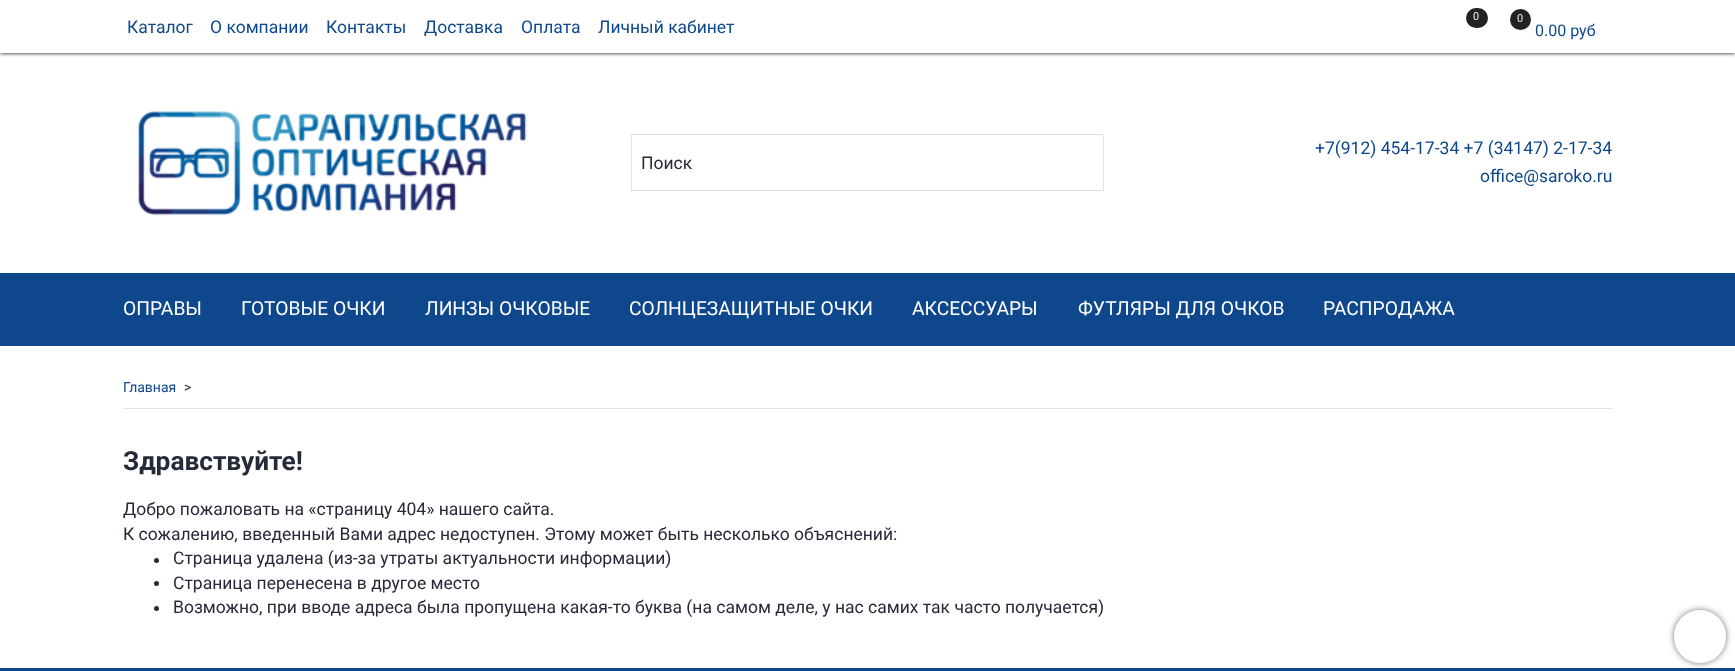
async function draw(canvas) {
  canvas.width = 1735
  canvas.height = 671
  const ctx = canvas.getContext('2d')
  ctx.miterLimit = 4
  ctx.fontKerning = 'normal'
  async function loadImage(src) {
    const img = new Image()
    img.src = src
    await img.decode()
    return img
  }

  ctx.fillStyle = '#fff'
  ctx.fillRect(0, 0, 1735, 671)
  ctx.fillStyle = '#000'
  ctx.filter = 'blur(2px)'
  ctx.beginPath()
  ctx.rect(0, 0, 1735, 53)
  ctx.fill()
  ctx.filter = 'none'
  ctx.fillStyle = '#fff'
  ctx.fillRect(0, 0, 1735, 53)
  ctx.font = '17.5px Roboto'
  ctx.fillStyle = '#0e478b'
  ctx.fillText('Каталог', 127, 33)
  ctx.fillText('О компании', 210, 33)
  ctx.fillText('Контакты', 326, 33)
  ctx.fillText('Доставка', 424, 33)
  ctx.fillText('Оплата', 521, 33)
  ctx.fillText('Личный кабинет', 598, 33)
  ctx.fillStyle = '#222'
  ctx.beginPath()
  ctx.roundRect(1466, 8, 22, 20, 10)
  ctx.fill()
  ctx.font = '11px Roboto'
  ctx.fillStyle = '#eee'
  ctx.fillText('0', 1473, 20)
  ctx.fillStyle = '#222'
  ctx.beginPath()
  ctx.arc(1520.5, 19.5, 10.5, 0, 2 * Math.PI)
  ctx.fill()
  ctx.fillStyle = '#eee'
  ctx.fillText('0', 1517, 22)
  ctx.font = '16px Roboto'
  ctx.fillStyle = '#0e478b'
  ctx.fillText('0.00 руб', 1535, 36)
  ctx.drawImage(await loadImage('image0.png'), 137, 111, 390, 105)
  ctx.strokeStyle = '#e1e2f0'
  ctx.strokeRect(631.5, 134.5, 472, 56)
  ctx.font = '17.5px Roboto'
  ctx.fillStyle = '#262938'
  ctx.fillText('Поиск', 641, 169)
  ctx.fillStyle = '#0e478b'
  ctx.fillText('+7(912) 454-17-34 +7 (34147) 2-17-34', 1315, 154)
  ctx.fillText('office@saroko.ru', 1480, 182)
  ctx.fillRect(0, 273, 1735, 73)
  ctx.font = '19.25px Roboto'
  ctx.fillStyle = '#fff'
  ctx.fillText('ОПРАВЫ', 123, 315)
  ctx.fillText('ГОТОВЫЕ ОЧКИ', 241, 315)
  ctx.fillText('ЛИНЗЫ ОЧКОВЫЕ', 425, 315)
  ctx.fillText('СОЛНЦЕЗАЩИТНЫЕ ОЧКИ', 629, 315)
  ctx.fillText('АКСЕССУАРЫ', 912, 315)
  ctx.fillText('ФУТЛЯРЫ ДЛЯ ОЧКОВ', 1078, 315)
  ctx.fillText('РАСПРОДАЖА', 1323, 315)
  ctx.fillStyle = '#e1e2f0'
  ctx.fillRect(123, 408, 1490, 1)
  ctx.font = '14px Roboto'
  ctx.fillStyle = '#0e478b'
  ctx.fillText('Главная', 123, 392)
  ctx.fillStyle = '#262938'
  ctx.fillText('>', 184, 392)
  ctx.font = 'bold 26.25px Roboto'
  ctx.fillText('Здравствуйте!', 123, 470)
  ctx.font = '17.5px Roboto'
  ctx.fillText('Добро пожаловать на «страницу 404» нашего сайта.', 123, 515)
  ctx.fillText('К сожалению, введенный Вами адрес недоступен. Этому может быть несколько объяснений:', 123, 540)
  ctx.beginPath()
  ctx.arc(156.5, 560.5, 2.5, 0, 2 * Math.PI)
  ctx.fill()
  ctx.fillText('Страница удалена (из-за утраты актуальности информации)', 173, 564)
  ctx.beginPath()
  ctx.arc(156.5, 583.5, 2.5, 0, 2 * Math.PI)
  ctx.fill()
  ctx.fillText('Страница перенесена в другое место', 173, 589)
  ctx.beginPath()
  ctx.arc(156.5, 608.5, 2.5, 0, 2 * Math.PI)
  ctx.fill()
  ctx.fillText('Возможно, при вводе адреса была пропущена какая-то буква (на самом деле, у нас самих так часто получается)', 173, 613)
  ctx.fillStyle = '#0e478b'
  ctx.fillRect(0, 668, 1735, 3)
  ctx.fillStyle = '#777'
  ctx.filter = 'blur(3px)'
  ctx.beginPath()
  ctx.roundRect(1674, 610, 52, 53, 26)
  ctx.fill()
  ctx.filter = 'none'
  ctx.fillStyle = '#fff'
  ctx.beginPath()
  ctx.roundRect(1674, 610, 52, 53, 26)
  ctx.fill()
}

draw(document.querySelector('canvas'))
